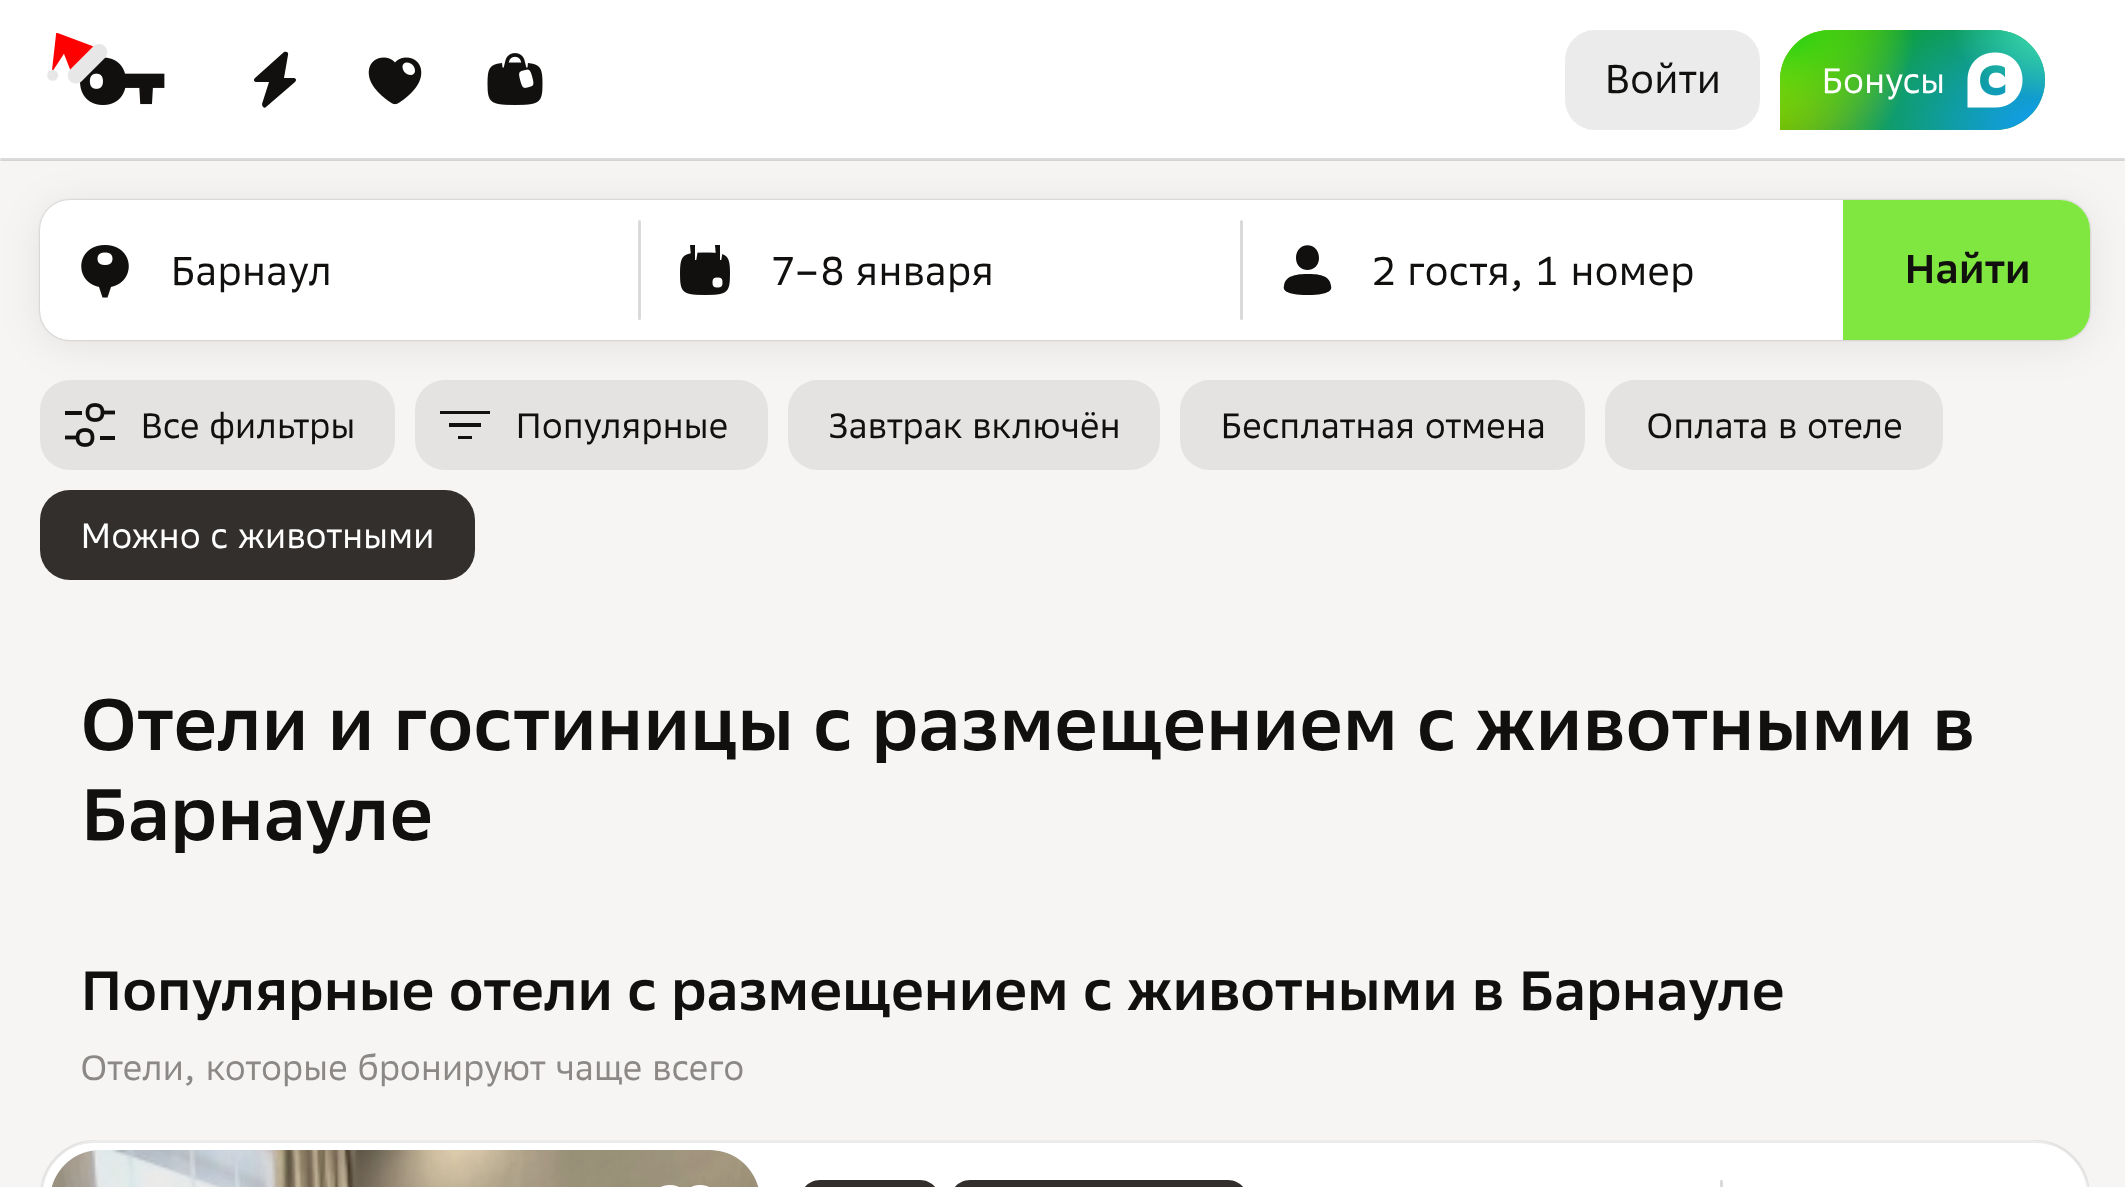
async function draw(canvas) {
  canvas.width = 2125
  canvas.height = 1187
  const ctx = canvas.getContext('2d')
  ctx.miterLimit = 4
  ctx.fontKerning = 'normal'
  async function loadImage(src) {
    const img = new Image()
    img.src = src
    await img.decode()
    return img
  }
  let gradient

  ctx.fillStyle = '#f6f5f4'
  ctx.fillRect(0, 0, 2125, 1187)
  ctx.fillStyle = '#e4e3e2'
  ctx.beginPath()
  ctx.roundRect(415, 380, 353, 90, 30)
  ctx.fill()
  ctx.beginPath()
  ctx.roundRect(788, 380, 372, 90, 30)
  ctx.fill()
  ctx.beginPath()
  ctx.roundRect(1180, 380, 405, 90, 30)
  ctx.fill()
  ctx.beginPath()
  ctx.roundRect(1605, 380, 338, 90, 30)
  ctx.fill()
  ctx.fillStyle = '#00000014'
  ctx.filter = 'blur(20px)'
  ctx.beginPath()
  ctx.roundRect(40, 205, 2050, 140, 30)
  ctx.fill()
  ctx.filter = 'none'
  ctx.fillStyle = '#fff'
  ctx.fillRect(0, 0, 2125, 160)
  ctx.fillStyle = '#8483824d'
  ctx.beginPath()
  ctx.roundRect(0, 158, 2125, 3, 1.5)
  ctx.fill()
  ctx.drawImage(await loadImage('image0.png'), 47, 33, 118, 72)
  ctx.fillStyle = '#11100f'
  ctx.beginPath()
  ctx.moveTo(255, 78)
  ctx.bezierCurveTo(253, 80, 254, 82, 257, 82)
  ctx.lineTo(269, 82)
  ctx.lineTo(262, 104)
  ctx.bezierCurveTo(262, 107, 265, 109, 266, 107)
  ctx.lineTo(295, 82)
  ctx.bezierCurveTo(297, 80, 296, 78, 293, 78)
  ctx.lineTo(284, 78)
  ctx.lineTo(288, 55)
  ctx.bezierCurveTo(289, 52, 286, 51, 284, 52)
  ctx.closePath()
  ctx.fill()
  ctx.drawImage(await loadImage('image1.png'), 368, 57, 54, 48)
  ctx.drawImage(await loadImage('image2.png'), 487, 53, 56, 52)
  ctx.fillStyle = '#ebebeb'
  ctx.beginPath()
  ctx.roundRect(1565, 30, 195, 100, 30)
  ctx.fill()
  ctx.letterSpacing = '-0.6px'
  ctx.font = '40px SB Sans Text'
  ctx.fillStyle = '#11100f'
  ctx.fillText('Войти', 1604, 93)
  ctx.fillStyle = '#0c9c0c'
  ctx.beginPath()
  ctx.roundRect(1780, 30, 265, 100, [50, 50, 50, 0])
  ctx.fill()
  gradient = ctx.createRadialGradient(2045, 183.7, 0, 2045, 183.7, 260)
  gradient.addColorStop(0, '#129dfa')
  gradient.addColorStop(1, '#129dfa00')
  ctx.fillStyle = gradient
  ctx.beginPath()
  ctx.roundRect(1780, 30, 265, 100, [50, 50, 50, 0])
  ctx.save()
  ctx.clip()
  ctx.scale(1, 184 / 260)
  ctx.fillRect(0, 0, 2125, 1678)
  ctx.restore()
  gradient = ctx.createRadialGradient(2055, 44.35, 0, 2055, 44.35, 102)
  gradient.addColorStop(0, '#42e3b4')
  gradient.addColorStop(1, '#42e3b400')
  ctx.fillStyle = gradient
  ctx.beginPath()
  ctx.roundRect(1780, 30, 265, 100, [50, 50, 50, 0])
  ctx.save()
  ctx.clip()
  ctx.scale(1, 69 / 102)
  ctx.fillRect(0, 0, 2125, 1755)
  ctx.restore()
  gradient = ctx.createRadialGradient(1769, 24.55, 0, 1769, 24.55, 144)
  gradient.addColorStop(0, '#faed05')
  gradient.addColorStop(1, '#faed0500')
  ctx.fillStyle = gradient
  ctx.beginPath()
  ctx.roundRect(1780, 30, 265, 100, [50, 50, 50, 0])
  ctx.save()
  ctx.clip()
  ctx.scale(1, 176 / 144)
  ctx.fillRect(0, 0, 2125, 972)
  ctx.restore()
  gradient = ctx.createRadialGradient(1780, 42.18, 0, 1780, 42.18, 142)
  gradient.addColorStop(0, '#15d015')
  gradient.addColorStop(1, '#15d01500')
  ctx.fillStyle = gradient
  ctx.beginPath()
  ctx.roundRect(1780, 30, 265, 100, [50, 50, 50, 0])
  ctx.save()
  ctx.clip()
  ctx.scale(1, 101 / 142)
  ctx.fillRect(0, 0, 2125, 1669)
  ctx.restore()
  ctx.letterSpacing = '-0.7px'
  ctx.font = '35px SB Sans Text'
  ctx.fillStyle = '#fff'
  ctx.fillText('Бонусы', 1821, 93)
  ctx.drawImage(await loadImage('image3.png'), 1967, 52, 56, 56)
  ctx.fillStyle = '#0000003d'
  ctx.filter = 'blur(1px)'
  ctx.beginPath()
  ctx.roundRect(40, 200, 2050, 140, 30)
  ctx.fill()
  ctx.filter = 'none'
  ctx.fillStyle = '#fff'
  ctx.beginPath()
  ctx.roundRect(40, 200, 2050, 140, 30)
  ctx.fill()
  ctx.drawImage(await loadImage('image4.png'), 81, 245, 48, 53)
  ctx.letterSpacing = '-0.6px'
  ctx.font = '40px SB Sans Text'
  ctx.fillStyle = '#11100f'
  ctx.fillText('Барнаул', 170, 285)
  ctx.fillStyle = '#dadada'
  ctx.beginPath()
  ctx.roundRect(638, 220, 3, 100, 1.5)
  ctx.fill()
  ctx.drawImage(await loadImage('image5.png'), 680, 245, 50, 50)
  ctx.fillStyle = '#11100f'
  ctx.fillText('7–8 января', 771, 285)
  ctx.fillStyle = '#dadada'
  ctx.beginPath()
  ctx.roundRect(1240, 220, 3, 100, 1.5)
  ctx.fill()
  ctx.fillStyle = '#11100f'
  ctx.beginPath()
  ctx.moveTo(1319, 258)
  ctx.bezierCurveTo(1319, 241, 1296, 241, 1296, 258)
  ctx.bezierCurveTo(1296, 274, 1319, 274, 1319, 258)
  ctx.closePath()
  ctx.moveTo(1308, 274)
  ctx.bezierCurveTo(1318, 274, 1330, 275, 1331, 286)
  ctx.bezierCurveTo(1332, 289, 1331, 295, 1308, 295)
  ctx.bezierCurveTo(1284, 295, 1283, 289, 1284, 286)
  ctx.bezierCurveTo(1285, 275, 1298, 274, 1308, 274)
  ctx.closePath()
  ctx.fill()
  ctx.fillText('2 гостя, 1 номер', 1372, 285)
  ctx.fillStyle = '#7fe740'
  ctx.beginPath()
  ctx.roundRect(1843, 200, 247, 140, [0, 30, 30, 0])
  ctx.fill()
  ctx.font = '600 40px SB Sans Text'
  ctx.fillStyle = '#11100f'
  ctx.fillText('Найти', 1904, 283)
  ctx.fillStyle = '#e4e3e2'
  ctx.beginPath()
  ctx.roundRect(40, 380, 355, 90, 30)
  ctx.fill()
  ctx.drawImage(await loadImage('image6.png'), 65, 403, 50, 44)
  ctx.letterSpacing = '-0.7px'
  ctx.font = '35px SB Sans Text'
  ctx.fillStyle = '#11100f'
  ctx.fillText('Все фильтры', 140, 438)
  ctx.beginPath()
  ctx.moveTo(490, 414)
  ctx.lineTo(440, 414)
  ctx.lineTo(440, 411)
  ctx.lineTo(490, 411)
  ctx.closePath()
  ctx.moveTo(481, 427)
  ctx.lineTo(449, 427)
  ctx.lineTo(449, 423)
  ctx.lineTo(481, 423)
  ctx.closePath()
  ctx.moveTo(458, 439)
  ctx.lineTo(472, 439)
  ctx.lineTo(472, 436)
  ctx.lineTo(458, 436)
  ctx.closePath()
  ctx.fill()
  ctx.fillText('Популярные', 515, 438)
  ctx.fillText('Завтрак включён', 828, 438)
  ctx.fillText('Бесплатная отмена', 1220, 438)
  ctx.fillText('Оплата в отеле', 1646, 438)
  ctx.fillStyle = '#322f2c'
  ctx.beginPath()
  ctx.roundRect(40, 490, 435, 90, 30)
  ctx.fill()
  ctx.fillStyle = '#fff'
  ctx.fillText('Можно с животными', 80, 548)
  ctx.letterSpacing = '-1.1px'
  ctx.font = '600 72.5px SB Sans Text'
  ctx.fillStyle = '#11100f'
  ctx.fillText('Отели и гостиницы с размещением с животными в', 80, 750)
  ctx.fillText('Барнауле', 80, 840)
  ctx.letterSpacing = '-1px'
  ctx.font = '600 55px SB Sans Text'
  ctx.fillText('Популярные отели с размещением с животными в Барнауле', 80, 1010)
  ctx.letterSpacing = '-0.7px'
  ctx.font = '35px SB Sans Text'
  ctx.fillStyle = '#8b8886'
  ctx.fillText('Отели, которые бронируют чаще всего', 80, 1080)
  ctx.fillStyle = '#fff'
  ctx.beginPath()
  ctx.moveTo(100, 1140)
  ctx.lineTo(2030, 1140)
  ctx.bezierCurveTo(2063, 1140, 2090, 1167, 2090, 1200)
  ctx.lineTo(2090, 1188)
  ctx.lineTo(40, 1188)
  ctx.lineTo(40, 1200)
  ctx.bezierCurveTo(40, 1167, 67, 1140, 100, 1140)
  ctx.closePath()
  ctx.fill()
  ctx.fillStyle = '#edebea'
  ctx.beginPath()
  ctx.moveTo(100, 1150)
  ctx.lineTo(710, 1150)
  ctx.bezierCurveTo(737.5, 1150, 760, 1172.5, 760, 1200)
  ctx.lineTo(760, 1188)
  ctx.lineTo(50, 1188)
  ctx.lineTo(50, 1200)
  ctx.bezierCurveTo(50, 1172.5, 72.5, 1150, 100, 1150)
  ctx.closePath()
  ctx.fill()
  ctx.drawImage(await loadImage('image7.png'), 52, 1150, 706, 37)
  ctx.fillStyle = '#84838229'
  ctx.beginPath()
  ctx.moveTo(100, 1150)
  ctx.lineTo(710, 1150)
  ctx.bezierCurveTo(738, 1150, 760, 1172, 760, 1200)
  ctx.lineTo(760, 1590)
  ctx.bezierCurveTo(760, 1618, 738, 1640, 710, 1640)
  ctx.lineTo(100, 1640)
  ctx.bezierCurveTo(72, 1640, 50, 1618, 50, 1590)
  ctx.lineTo(50, 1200)
  ctx.bezierCurveTo(50, 1172, 72, 1150, 100, 1150)
  ctx.closePath()
  ctx.fill()
  ctx.drawImage(await loadImage('image8.png'), 661, 1185, 48, 2)
  ctx.fillStyle = '#322f2c'
  ctx.beginPath()
  ctx.moveTo(820, 1180)
  ctx.lineTo(920, 1180)
  ctx.bezierCurveTo(931, 1180, 940, 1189, 940, 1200)
  ctx.lineTo(940, 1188)
  ctx.lineTo(800, 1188)
  ctx.lineTo(800, 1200)
  ctx.bezierCurveTo(800, 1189, 809, 1180, 820, 1180)
  ctx.closePath()
  ctx.fill()
  ctx.beginPath()
  ctx.moveTo(970, 1180)
  ctx.lineTo(1228, 1180)
  ctx.bezierCurveTo(1239, 1180, 1248, 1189, 1248, 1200)
  ctx.lineTo(1248, 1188)
  ctx.lineTo(950, 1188)
  ctx.lineTo(950, 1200)
  ctx.bezierCurveTo(950, 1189, 959, 1180, 970, 1180)
  ctx.closePath()
  ctx.fill()
  ctx.fillStyle = '#dadada'
  ctx.beginPath()
  ctx.moveTo(1721.5, 1180)
  ctx.bezierCurveTo(1722.5, 1180, 1723, 1180.5, 1723, 1181.5)
  ctx.lineTo(1723, 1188)
  ctx.lineTo(1720, 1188)
  ctx.lineTo(1720, 1181.5)
  ctx.bezierCurveTo(1720, 1180.5, 1720.5, 1180, 1721.5, 1180)
  ctx.closePath()
  ctx.fill()
  ctx.beginPath()
  ctx.roundRect(41.5, 1141.5, 2047, 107, 58.5)
  ctx.strokeStyle = '#84838229'
  ctx.lineWidth = 3
  ctx.stroke()
}

draw(document.querySelector('canvas'))
